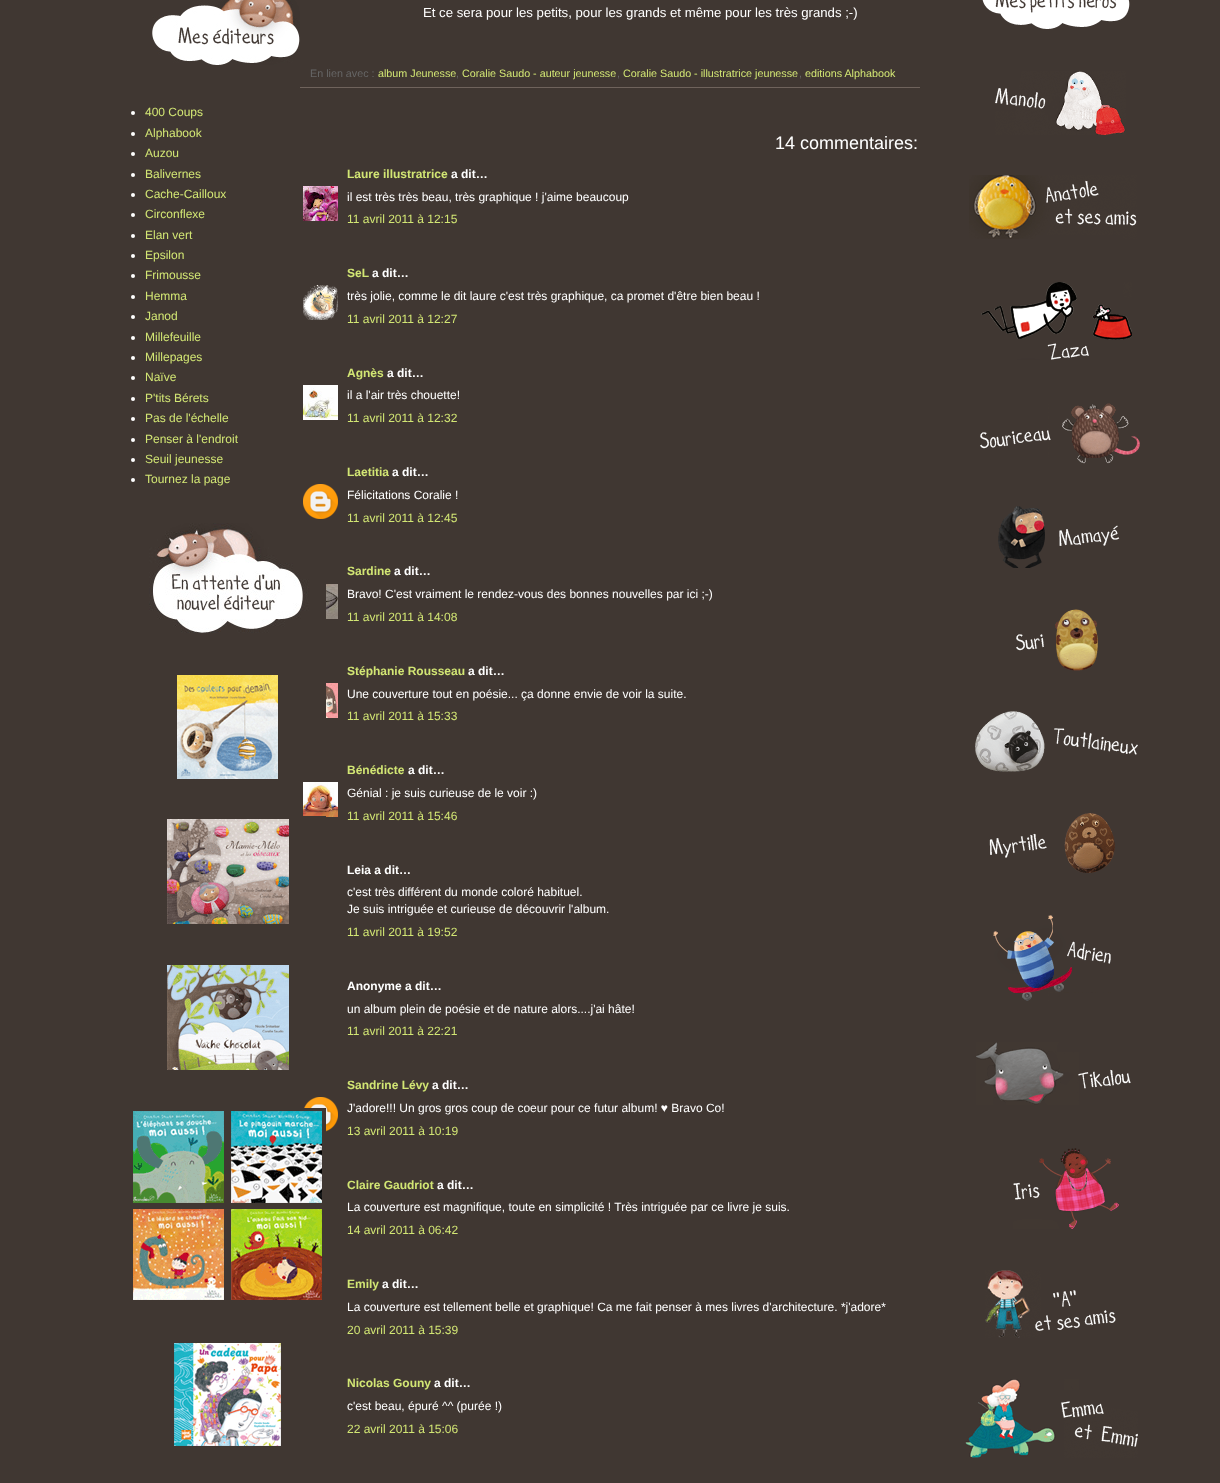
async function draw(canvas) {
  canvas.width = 1220
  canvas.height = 1483
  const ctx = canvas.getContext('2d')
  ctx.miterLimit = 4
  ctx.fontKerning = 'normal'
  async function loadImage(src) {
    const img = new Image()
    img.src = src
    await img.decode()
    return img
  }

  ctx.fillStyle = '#403732'
  ctx.fillRect(0, 0, 1220, 1483)
  ctx.drawImage(await loadImage('image0.png'), 152, 0, 148, 65)
  ctx.fillStyle = '#fff'
  ctx.beginPath()
  ctx.arc(133, 113, 2, 0, 2 * Math.PI)
  ctx.fill()
  ctx.font = '12px Liberation Sans'
  ctx.fillStyle = '#d2e674'
  ctx.fillText('400 Coups', 145, 116)
  ctx.fillStyle = '#fff'
  ctx.beginPath()
  ctx.arc(133, 134, 2, 0, 2 * Math.PI)
  ctx.fill()
  ctx.fillStyle = '#d2e674'
  ctx.fillText('Alphabook', 145, 137)
  ctx.fillStyle = '#fff'
  ctx.beginPath()
  ctx.arc(133, 154, 2, 0, 2 * Math.PI)
  ctx.fill()
  ctx.fillStyle = '#d2e674'
  ctx.fillText('Auzou', 145, 157)
  ctx.fillStyle = '#fff'
  ctx.beginPath()
  ctx.arc(133, 175, 2, 0, 2 * Math.PI)
  ctx.fill()
  ctx.fillStyle = '#d2e674'
  ctx.fillText('Balivernes', 145, 178)
  ctx.fillStyle = '#fff'
  ctx.beginPath()
  ctx.arc(133, 195, 2, 0, 2 * Math.PI)
  ctx.fill()
  ctx.fillStyle = '#d2e674'
  ctx.fillText('Cache-Cailloux', 145, 198)
  ctx.fillStyle = '#fff'
  ctx.beginPath()
  ctx.arc(133, 215, 2, 0, 2 * Math.PI)
  ctx.fill()
  ctx.fillStyle = '#d2e674'
  ctx.fillText('Circonflexe', 145, 218)
  ctx.fillStyle = '#fff'
  ctx.beginPath()
  ctx.arc(133, 236, 2, 0, 2 * Math.PI)
  ctx.fill()
  ctx.fillStyle = '#d2e674'
  ctx.fillText('Elan vert', 145, 239)
  ctx.fillStyle = '#fff'
  ctx.beginPath()
  ctx.arc(133, 256, 2, 0, 2 * Math.PI)
  ctx.fill()
  ctx.fillStyle = '#d2e674'
  ctx.fillText('Epsilon', 145, 259)
  ctx.fillStyle = '#fff'
  ctx.beginPath()
  ctx.arc(133, 276, 2, 0, 2 * Math.PI)
  ctx.fill()
  ctx.fillStyle = '#d2e674'
  ctx.fillText('Frimousse', 145, 279)
  ctx.fillStyle = '#fff'
  ctx.beginPath()
  ctx.arc(133, 297, 2, 0, 2 * Math.PI)
  ctx.fill()
  ctx.fillStyle = '#d2e674'
  ctx.fillText('Hemma', 145, 300)
  ctx.fillStyle = '#fff'
  ctx.beginPath()
  ctx.arc(133, 317, 2, 0, 2 * Math.PI)
  ctx.fill()
  ctx.fillStyle = '#d2e674'
  ctx.fillText('Janod', 145, 320)
  ctx.fillStyle = '#fff'
  ctx.beginPath()
  ctx.arc(133, 338, 2, 0, 2 * Math.PI)
  ctx.fill()
  ctx.fillStyle = '#d2e674'
  ctx.fillText('Millefeuille', 145, 341)
  ctx.fillStyle = '#fff'
  ctx.beginPath()
  ctx.arc(133, 358, 2, 0, 2 * Math.PI)
  ctx.fill()
  ctx.fillStyle = '#d2e674'
  ctx.fillText('Millepages', 145, 361)
  ctx.fillStyle = '#fff'
  ctx.beginPath()
  ctx.arc(133, 378, 2, 0, 2 * Math.PI)
  ctx.fill()
  ctx.fillStyle = '#d2e674'
  ctx.fillText('Naïve', 145, 381)
  ctx.fillStyle = '#fff'
  ctx.beginPath()
  ctx.arc(133, 399, 2, 0, 2 * Math.PI)
  ctx.fill()
  ctx.fillStyle = '#d2e674'
  ctx.fillText('P\'tits Bérets', 145, 402)
  ctx.fillStyle = '#fff'
  ctx.beginPath()
  ctx.arc(133, 419, 2, 0, 2 * Math.PI)
  ctx.fill()
  ctx.fillStyle = '#d2e674'
  ctx.fillText('Pas de l\'échelle', 145, 422)
  ctx.fillStyle = '#fff'
  ctx.beginPath()
  ctx.arc(133, 440, 2, 0, 2 * Math.PI)
  ctx.fill()
  ctx.fillStyle = '#d2e674'
  ctx.fillText('Penser à l\'endroit', 145, 443)
  ctx.fillStyle = '#fff'
  ctx.beginPath()
  ctx.arc(133, 460, 2, 0, 2 * Math.PI)
  ctx.fill()
  ctx.fillStyle = '#d2e674'
  ctx.fillText('Seuil jeunesse', 145, 463)
  ctx.fillStyle = '#fff'
  ctx.beginPath()
  ctx.arc(133, 480, 2, 0, 2 * Math.PI)
  ctx.fill()
  ctx.fillStyle = '#d2e674'
  ctx.fillText('Tournez la page', 145, 483)
  ctx.drawImage(await loadImage('image1.png'), 149, 523, 160, 110)
  ctx.drawImage(await loadImage('image2.png'), 177, 675, 101, 104)
  ctx.drawImage(await loadImage('image13.png'), 303, 782, 35, 35)
  ctx.fillStyle = '#403732'
  ctx.fillRect(303, 816, 23, 1)
  ctx.drawImage(await loadImage('image3.png'), 167, 819, 122, 105)
  ctx.drawImage(await loadImage('image4.png'), 167, 965, 122, 105)
  ctx.drawImage(await loadImage('image14.png'), 304, 1097, 34, 35)
  ctx.fillRect(304, 1108, 22, 24)
  ctx.drawImage(await loadImage('image5.png'), 133, 1111, 189, 189)
  ctx.drawImage(await loadImage('image6.png'), 174, 1343, 107, 103)
  ctx.font = '13.2px Liberation Sans'
  ctx.fillStyle = '#fff'
  ctx.fillText('Et ce sera pour les petits, pour les grands et même pour les très grands ;-)', 423, 17)
  ctx.fillStyle = '#6f635c'
  ctx.fillRect(300, 87, 620, 1)
  ctx.font = '10.75px Liberation Sans'
  ctx.fillStyle = '#666'
  ctx.fillText('En lien avec :', 310, 77)
  ctx.fillStyle = '#d2e674'
  ctx.fillText('album Jeunesse', 378, 77)
  ctx.fillStyle = '#666'
  ctx.fillText(',', 456, 77)
  ctx.fillStyle = '#d2e674'
  ctx.fillText('Coralie Saudo - auteur jeunesse', 462, 77)
  ctx.fillStyle = '#666'
  ctx.fillText(',', 617, 77)
  ctx.fillStyle = '#d2e674'
  ctx.fillText('Coralie Saudo - illustratrice jeunesse', 623, 77)
  ctx.fillStyle = '#666'
  ctx.fillText(',', 799, 77)
  ctx.fillStyle = '#d2e674'
  ctx.fillText('editions Alphabook', 805, 77)
  ctx.font = '18px Liberation Sans'
  ctx.fillStyle = '#fff'
  ctx.fillText('14 commentaires:', 775, 149)
  ctx.font = 'bold 12px Liberation Sans'
  ctx.fillStyle = '#d2e674'
  ctx.fillText('Laure illustratrice', 347, 178)
  ctx.fillStyle = '#fff'
  ctx.fillText('a dit…', 451, 178)
  ctx.drawImage(await loadImage('image7.png'), 303, 186, 35, 35)
  ctx.font = '12px Liberation Sans'
  ctx.fillText('il est très très beau, très graphique ! j\'aime beaucoup', 347, 201)
  ctx.fillStyle = '#d2e674'
  ctx.fillText('11 avril 2011 à 12:15', 347, 223)
  ctx.font = 'bold 12px Liberation Sans'
  ctx.fillText('SeL', 347, 277)
  ctx.fillStyle = '#fff'
  ctx.fillText('a dit…', 372, 277)
  ctx.drawImage(await loadImage('image8.png'), 303, 285, 35, 35)
  ctx.font = '12px Liberation Sans'
  ctx.fillText('très jolie, comme le dit laure c\'est très graphique, ca promet d\'être bien beau !', 347, 300)
  ctx.fillStyle = '#d2e674'
  ctx.fillText('11 avril 2011 à 12:27', 347, 323)
  ctx.font = 'bold 12px Liberation Sans'
  ctx.fillText('Agnès', 347, 377)
  ctx.fillStyle = '#fff'
  ctx.fillText('a dit…', 387, 377)
  ctx.drawImage(await loadImage('image9.png'), 303, 385, 35, 35)
  ctx.font = '12px Liberation Sans'
  ctx.fillText('il a l\'air très chouette!', 347, 399)
  ctx.fillStyle = '#d2e674'
  ctx.fillText('11 avril 2011 à 12:32', 347, 422)
  ctx.font = 'bold 12px Liberation Sans'
  ctx.fillText('Laetitia', 347, 476)
  ctx.fillStyle = '#fff'
  ctx.fillText('a dit…', 392, 476)
  ctx.drawImage(await loadImage('image10.png'), 303, 484, 35, 35)
  ctx.font = '12px Liberation Sans'
  ctx.fillText('Félicitations Coralie !', 347, 499)
  ctx.fillStyle = '#d2e674'
  ctx.fillText('11 avril 2011 à 12:45', 347, 522)
  ctx.font = 'bold 12px Liberation Sans'
  ctx.fillText('Sardine', 347, 575)
  ctx.fillStyle = '#fff'
  ctx.fillText('a dit…', 394, 575)
  ctx.drawImage(await loadImage('image11.png'), 326, 584, 12, 35)
  ctx.font = '12px Liberation Sans'
  ctx.fillText('Bravo! C\'est vraiment le rendez-vous des bonnes nouvelles par ici ;-)', 347, 598)
  ctx.fillStyle = '#d2e674'
  ctx.fillText('11 avril 2011 à 14:08', 347, 621)
  ctx.font = 'bold 12px Liberation Sans'
  ctx.fillText('Stéphanie Rousseau', 347, 675)
  ctx.fillStyle = '#fff'
  ctx.fillText('a dit…', 468, 675)
  ctx.drawImage(await loadImage('image12.png'), 326, 683, 12, 35)
  ctx.font = '12px Liberation Sans'
  ctx.fillText('Une couverture tout en poésie... ça donne envie de voir la suite.', 347, 698)
  ctx.fillStyle = '#d2e674'
  ctx.fillText('11 avril 2011 à 15:33', 347, 720)
  ctx.font = 'bold 12px Liberation Sans'
  ctx.fillText('Bénédicte', 347, 774)
  ctx.fillStyle = '#fff'
  ctx.fillText('a dit…', 408, 774)
  ctx.font = '12px Liberation Sans'
  ctx.fillText('Génial : je suis curieuse de le voir :)', 347, 797)
  ctx.fillStyle = '#d2e674'
  ctx.fillText('11 avril 2011 à 15:46', 347, 820)
  ctx.font = 'bold 12px Liberation Sans'
  ctx.fillStyle = '#fff'
  ctx.fillText('Leia a dit…', 347, 874)
  ctx.font = '12px Liberation Sans'
  ctx.fillText('c\'est très différent du monde coloré habituel.', 347, 896)
  ctx.fillText('Je suis intriguée et curieuse de découvrir l\'album.', 347, 913)
  ctx.fillStyle = '#d2e674'
  ctx.fillText('11 avril 2011 à 19:52', 347, 936)
  ctx.font = 'bold 12px Liberation Sans'
  ctx.fillStyle = '#fff'
  ctx.fillText('Anonyme a dit…', 347, 990)
  ctx.font = '12px Liberation Sans'
  ctx.fillText('un album plein de poésie et de nature alors....j\'ai hâte!', 347, 1013)
  ctx.fillStyle = '#d2e674'
  ctx.fillText('11 avril 2011 à 22:21', 347, 1035)
  ctx.font = 'bold 12px Liberation Sans'
  ctx.fillText('Sandrine Lévy', 347, 1089)
  ctx.fillStyle = '#fff'
  ctx.fillText('a dit…', 432, 1089)
  ctx.font = '12px Liberation Sans'
  ctx.fillText('J\'adore!!! Un gros gros coup de coeur pour ce futur album! ♥ Bravo Co!', 347, 1112)
  ctx.fillStyle = '#d2e674'
  ctx.fillText('13 avril 2011 à 10:19', 347, 1135)
  ctx.font = 'bold 12px Liberation Sans'
  ctx.fillText('Claire Gaudriot', 347, 1189)
  ctx.fillStyle = '#fff'
  ctx.fillText('a dit…', 437, 1189)
  ctx.font = '12px Liberation Sans'
  ctx.fillText('La couverture est magnifique, toute en simplicité ! Très intriguée par ce livre je suis.', 347, 1211)
  ctx.fillStyle = '#d2e674'
  ctx.fillText('14 avril 2011 à 06:42', 347, 1234)
  ctx.font = 'bold 12px Liberation Sans'
  ctx.fillText('Emily', 347, 1288)
  ctx.fillStyle = '#fff'
  ctx.fillText('a dit…', 382, 1288)
  ctx.font = '12px Liberation Sans'
  ctx.fillText('La couverture est tellement belle et graphique! Ca me fait penser à mes livres d\'architecture. *j\'adore*', 347, 1311)
  ctx.fillStyle = '#d2e674'
  ctx.fillText('20 avril 2011 à 15:39', 347, 1334)
  ctx.font = 'bold 12px Liberation Sans'
  ctx.fillText('Nicolas Gouny', 347, 1387)
  ctx.fillStyle = '#fff'
  ctx.fillText('a dit…', 434, 1387)
  ctx.font = '12px Liberation Sans'
  ctx.fillText('c\'est beau, épuré ^^ (purée !)', 347, 1410)
  ctx.fillStyle = '#d2e674'
  ctx.fillText('22 avril 2011 à 15:06', 347, 1433)
  ctx.drawImage(await loadImage('image15.png'), 982, 0, 148, 29)
  ctx.drawImage(await loadImage('image16.png'), 995, 71, 131, 64)
  ctx.drawImage(await loadImage('image17.png'), 969, 175, 168, 64)
  ctx.drawImage(await loadImage('image18.png'), 981, 282, 151, 78)
  ctx.drawImage(await loadImage('image19.png'), 980, 403, 160, 61)
  ctx.drawImage(await loadImage('image20.png'), 998, 506, 122, 62)
  ctx.drawImage(await loadImage('image21.png'), 1016, 609, 82, 62)
  ctx.drawImage(await loadImage('image22.png'), 975, 711, 163, 61)
  ctx.drawImage(await loadImage('image23.png'), 989, 813, 126, 60)
  ctx.drawImage(await loadImage('image24.png'), 993, 915, 118, 86)
  ctx.drawImage(await loadImage('image25.png'), 976, 1042, 155, 63)
  ctx.drawImage(await loadImage('image26.png'), 1013, 1148, 106, 81)
  ctx.drawImage(await loadImage('image27.png'), 985, 1270, 131, 68)
  ctx.drawImage(await loadImage('image28.png'), 965, 1379, 173, 79)
}

draw(document.querySelector('canvas'))
